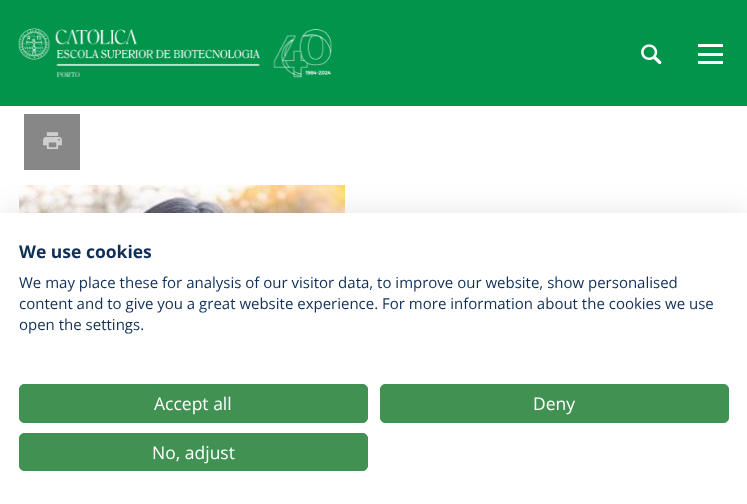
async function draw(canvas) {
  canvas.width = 747
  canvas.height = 504
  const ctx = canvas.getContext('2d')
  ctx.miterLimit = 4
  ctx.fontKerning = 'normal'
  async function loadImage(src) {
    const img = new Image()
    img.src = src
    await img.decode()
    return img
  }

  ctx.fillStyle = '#fff'
  ctx.fillRect(0, 0, 747, 504)
  ctx.fillStyle = '#01944a'
  ctx.fillRect(0, 0, 747, 106)
  ctx.drawImage(await loadImage('image0.png'), 18, 28, 314, 50)
  ctx.drawImage(await loadImage('image1.png'), 641, 44, 21, 21)
  ctx.fillStyle = '#fff'
  ctx.fillRect(698, 44, 25, 3)
  ctx.fillRect(698, 53, 25, 3)
  ctx.fillRect(698, 61, 25, 3)
  ctx.fillStyle = '#878787'
  ctx.fillRect(24, 114, 56, 56)
  ctx.drawImage(await loadImage('image2.png'), 43, 132, 19, 18)
  ctx.drawImage(await loadImage('image3.png'), 19, 185, 326, 28)
  ctx.fillStyle = '#0000001a'
  ctx.filter = 'blur(15px)'
  ctx.beginPath()
  ctx.rect(0, 213, 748, 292)
  ctx.fill()
  ctx.filter = 'none'
  ctx.fillStyle = '#fff'
  ctx.fillRect(0, 213, 747, 291)
  ctx.font = 'bold 17.5px Open Sans'
  ctx.fillStyle = '#102f56'
  ctx.fillText('We use cookies', 19, 258)
  ctx.font = '15px Open Sans'
  ctx.fillText('We may place these for analysis of our visitor data, to improve our website, show personalised', 19, 288)
  ctx.fillText('content and to give you a great website experience. For more information about the cookies we use', 19, 309)
  ctx.fillText('open the settings.', 19, 330)
  ctx.fillStyle = '#419252'
  ctx.beginPath()
  ctx.roundRect(19.5, 384.5, 348, 38, 4.5)
  ctx.fill()
  ctx.strokeStyle = '#419252'
  ctx.stroke()
  ctx.font = '17.5px Open Sans'
  ctx.fillStyle = '#fff'
  ctx.fillText('Accept all', 154, 410)
  ctx.fillStyle = '#419252'
  ctx.beginPath()
  ctx.roundRect(380.5, 384.5, 348, 38, 4.5)
  ctx.fill()
  ctx.stroke()
  ctx.fillStyle = '#fff'
  ctx.fillText('Deny', 533, 410)
  ctx.fillStyle = '#419252'
  ctx.beginPath()
  ctx.roundRect(19.5, 433.5, 348, 37, 4.5)
  ctx.fill()
  ctx.stroke()
  ctx.fillStyle = '#fff'
  ctx.fillText('No, adjust', 152, 459)
}

draw(document.querySelector('canvas'))
